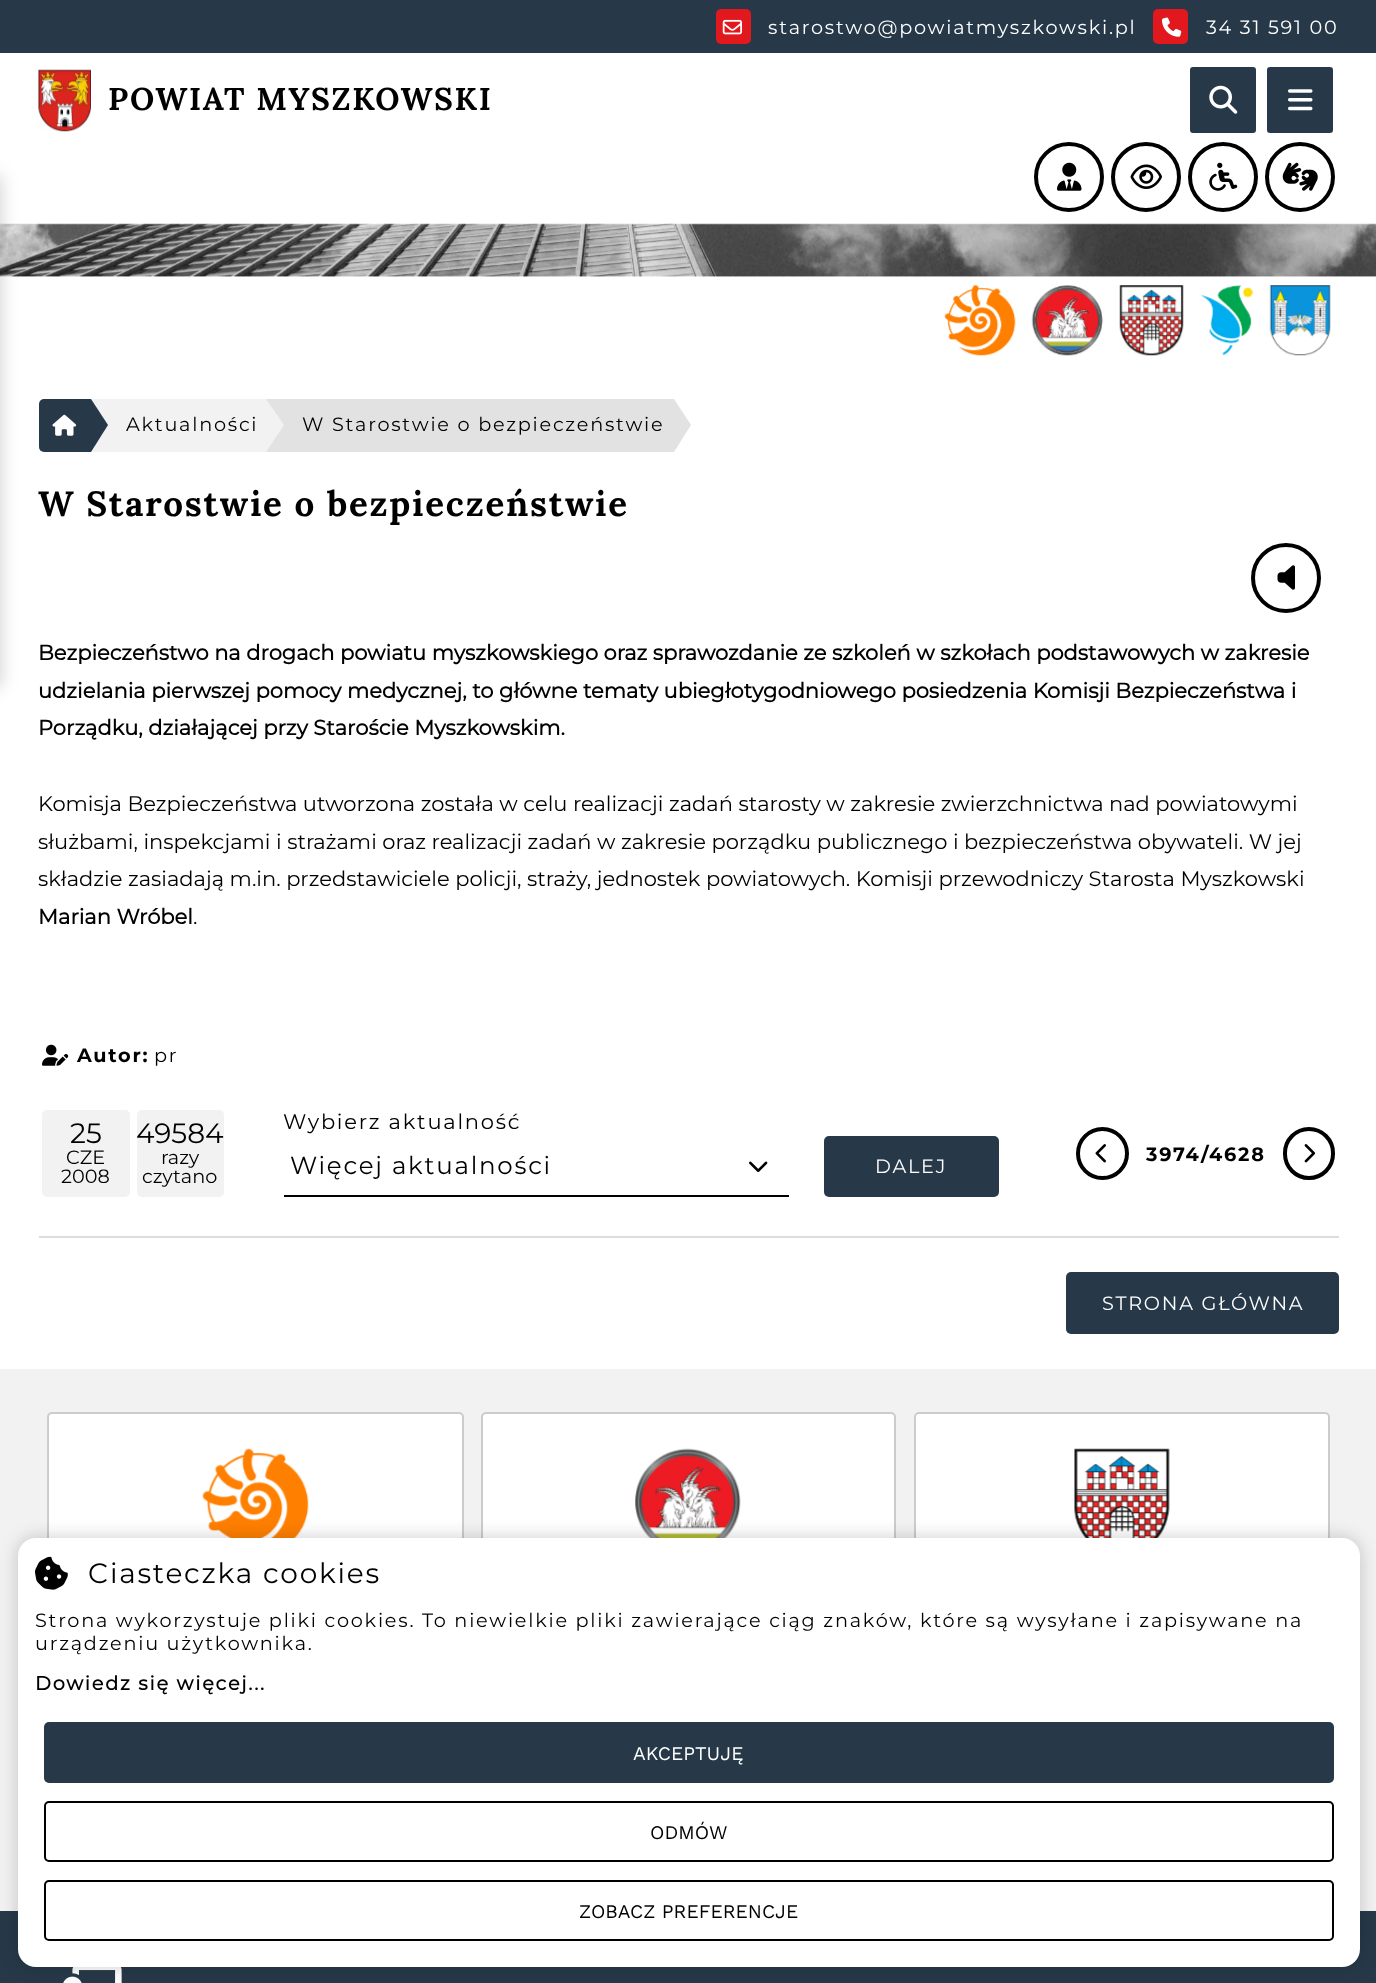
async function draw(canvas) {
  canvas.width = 1376
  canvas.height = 1983
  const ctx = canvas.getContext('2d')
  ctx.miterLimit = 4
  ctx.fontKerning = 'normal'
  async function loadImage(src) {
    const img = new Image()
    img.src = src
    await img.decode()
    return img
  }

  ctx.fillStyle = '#fff'
  ctx.fillRect(0, 0, 1376, 1983)
  ctx.save()
  ctx.beginPath()
  ctx.rect(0, 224, 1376, 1)
  ctx.clip()
  ctx.fillStyle = '#00000026'
  ctx.filter = 'blur(17.5px)'
  ctx.beginPath()
  ctx.rect(0, 53, 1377, 171)
  ctx.fill()
  ctx.filter = 'none'
  ctx.restore()
  ctx.fillStyle = '#273949'
  ctx.fillRect(0, 0, 1376, 53)
  ctx.fillStyle = '#e1181e'
  ctx.beginPath()
  ctx.roundRect(716, 9, 35, 35, 5)
  ctx.fill()
  ctx.drawImage(await loadImage('image0.png'), 722, 19, 20, 16)
  ctx.letterSpacing = '1.75px'
  ctx.font = '19.25px Montserrat'
  ctx.fillStyle = '#fff'
  ctx.fillText('starostwo@powiatmyszkowski.pl', 768, 34)
  ctx.fillStyle = '#e1181e'
  ctx.beginPath()
  ctx.roundRect(1153, 9, 35, 35, 5)
  ctx.fill()
  ctx.drawImage(await loadImage('image1.png'), 1162, 17, 20, 20)
  ctx.fillStyle = '#fff'
  ctx.fillText('34 31 591 00', 1206, 34)
  ctx.drawImage(await loadImage('image2.png'), 38, 69, 53, 63)
  ctx.font = 'bold 31.5px Lora'
  ctx.fillStyle = '#000'
  ctx.fillText('POWIAT MYSZKOWSKI', 108, 110)
  ctx.fillStyle = '#273949'
  ctx.beginPath()
  ctx.roundRect(1189, 66, 68, 68, 4)
  ctx.fill()
  ctx.strokeStyle = '#fff'
  ctx.lineWidth = 2
  ctx.stroke()
  ctx.drawImage(await loadImage('image3.png'), 1209, 85, 29, 29)
  ctx.beginPath()
  ctx.roundRect(1266, 66, 68, 68, 4)
  ctx.fill()
  ctx.stroke()
  ctx.drawImage(await loadImage('image4.png'), 1288, 89, 25, 22)
  ctx.beginPath()
  ctx.arc(1069, 177, 33, 0, 2 * Math.PI)
  ctx.strokeStyle = '#000'
  ctx.lineWidth = 4
  ctx.stroke()
  ctx.drawImage(await loadImage('image5.png'), 1057, 162, 25, 29)
  ctx.beginPath()
  ctx.arc(1146, 177, 33, 0, 2 * Math.PI)
  ctx.stroke()
  ctx.drawImage(await loadImage('image6.png'), 1130, 164, 32, 25)
  ctx.beginPath()
  ctx.arc(1223, 177, 33, 0, 2 * Math.PI)
  ctx.stroke()
  ctx.drawImage(await loadImage('image7.png'), 1209, 162, 29, 29)
  ctx.beginPath()
  ctx.arc(1300, 177, 33, 0, 2 * Math.PI)
  ctx.stroke()
  ctx.drawImage(await loadImage('image8.png'), 1282, 162, 36, 29)
  ctx.drawImage(await loadImage('image9.png'), 0, 223, 1376, 54)
  ctx.fillStyle = '#00000033'
  ctx.filter = 'blur(9px)'
  ctx.beginPath()
  ctx.roundRect(-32, 175, 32, 513, 5)
  ctx.fill()
  ctx.filter = 'none'
  ctx.drawImage(await loadImage('image10.png'), 944, 285, 72, 71)
  ctx.drawImage(await loadImage('image11.png'), 1031, 285, 72, 71)
  ctx.drawImage(await loadImage('image12.png'), 1119, 285, 65, 71)
  ctx.drawImage(await loadImage('image13.png'), 1201, 285, 52, 71)
  ctx.drawImage(await loadImage('image14.png'), 1269, 285, 62, 71)
  ctx.fillStyle = '#273949'
  ctx.beginPath()
  ctx.roundRect(39, 399, 52, 53, [5, 0, 0, 5])
  ctx.fill()
  ctx.drawImage(await loadImage('image15.png'), 52, 414, 25, 22)
  ctx.fillStyle = '#f2f2f2'
  ctx.fillRect(91, 399, 175, 53)
  ctx.fillStyle = '#273949'
  ctx.beginPath()
  ctx.moveTo(91, 452)
  ctx.lineTo(91, 399)
  ctx.lineTo(108, 425)
  ctx.closePath()
  ctx.fill()
  ctx.font = '19.25px Montserrat'
  ctx.fillStyle = '#000'
  ctx.fillText('Aktualności', 126, 431)
  ctx.fillStyle = '#e2e2e2'
  ctx.fillRect(266, 399, 408, 53)
  ctx.fillStyle = '#f2f2f2'
  ctx.beginPath()
  ctx.moveTo(266, 452)
  ctx.lineTo(266, 399)
  ctx.lineTo(284, 425)
  ctx.closePath()
  ctx.fill()
  ctx.fillStyle = '#000'
  ctx.fillText('W Starostwie o bezpieczeństwie', 302, 431)
  ctx.fillStyle = '#e2e2e2'
  ctx.beginPath()
  ctx.moveTo(674, 452)
  ctx.lineTo(674, 399)
  ctx.lineTo(691, 425)
  ctx.closePath()
  ctx.fill()
  ctx.font = 'bold 35px Lora'
  ctx.fillStyle = '#000'
  ctx.fillText('W Starostwie o bezpieczeństwie', 38, 516)
  ctx.beginPath()
  ctx.arc(1286, 578, 33, 0, 2 * Math.PI)
  ctx.stroke()
  ctx.drawImage(await loadImage('image16.png'), 1277, 565, 18, 25)
  ctx.letterSpacing = '0px'
  ctx.font = 'bold 21px Montserrat'
  ctx.fillText('Bezpieczeństwo na drogach powiatu myszkowskiego oraz sprawozdanie ze szkoleń w szkołach podstawowych w zakresie', 38, 660)
  ctx.fillText('udzielania pierwszej pomocy medycznej, to główne tematy ubiegłotygodniowego posiedzenia Komisji Bezpieczeństwa i', 38, 698)
  ctx.fillText('Porządku, działającej przy Staroście Myszkowskim.', 38, 735)
  ctx.font = '21px Montserrat'
  ctx.fillText('Komisja Bezpieczeństwa utworzona została w celu realizacji zadań starosty w zakresie zwierzchnictwa nad powiatowymi', 38, 811)
  ctx.fillText('służbami, inspekcjami i strażami oraz realizacji zadań w zakresie porządku publicznego i bezpieczeństwa obywateli. W jej', 38, 849)
  ctx.fillText('składzie zasiadają m.in. przedstawiciele policji, straży, jednostek powiatowych. Komisji przewodniczy Starosta Myszkowski', 38, 886)
  ctx.font = 'bold 21px Montserrat'
  ctx.fillText('Marian Wróbel', 38, 924)
  ctx.font = '21px Montserrat'
  ctx.fillText('.', 193, 924)
  ctx.drawImage(await loadImage('image17.png'), 42, 1044, 27, 22)
  ctx.letterSpacing = '1.75px'
  ctx.font = 'bold 19.25px "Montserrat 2"'
  ctx.fillText('Autor:', 77, 1062)
  ctx.font = '19.25px Montserrat'
  ctx.fillText('pr', 154, 1062)
  ctx.fillStyle = '#f2f2f2'
  ctx.beginPath()
  ctx.roundRect(42, 1110, 88, 87, 5)
  ctx.fill()
  ctx.letterSpacing = '0px'
  ctx.font = '28px Montserrat'
  ctx.fillStyle = '#000'
  ctx.fillText('25', 70, 1143)
  ctx.font = '19.25px Montserrat'
  ctx.fillText('CZE', 66, 1164)
  ctx.fillText('2008', 61, 1183)
  ctx.fillStyle = '#f2f2f2'
  ctx.beginPath()
  ctx.roundRect(137, 1110, 87, 87, 5)
  ctx.fill()
  ctx.font = '28px Montserrat'
  ctx.fillStyle = '#000'
  ctx.fillText('49584', 136, 1143)
  ctx.font = '19.25px Montserrat'
  ctx.fillText('razy', 161, 1164)
  ctx.fillText('czytano', 142, 1183)
  ctx.letterSpacing = '1.75px'
  ctx.font = '21px Montserrat'
  ctx.fillText('Wybierz aktualność', 283, 1129)
  ctx.fillRect(284, 1195, 505, 2)
  ctx.font = '24.5px Montserrat'
  ctx.fillText('Więcej aktualności', 290, 1174)
  ctx.drawImage(await loadImage('image18.png'), 749, 1161, 19, 11)
  ctx.fillStyle = '#273949'
  ctx.beginPath()
  ctx.roundRect(824, 1136, 175, 61, 5)
  ctx.fill()
  ctx.font = '19.25px Montserrat'
  ctx.fillStyle = '#fff'
  ctx.fillText('DALEJ', 875, 1173)
  ctx.beginPath()
  ctx.arc(1102.5, 1153.5, 24.5, 0, 2 * Math.PI)
  ctx.stroke()
  ctx.drawImage(await loadImage('image19.png'), 1095, 1144, 11, 19)
  ctx.font = 'bold 19.25px "Montserrat 2"'
  ctx.fillStyle = '#000'
  ctx.fillText('3974/4628', 1146, 1161)
  ctx.beginPath()
  ctx.roundRect(1285, 1129, 48, 49, 24)
  ctx.stroke()
  ctx.drawImage(await loadImage('image20.png'), 1304, 1144, 12, 19)
  ctx.fillStyle = '#ddd'
  ctx.fillRect(39, 1236, 1300, 2)
  ctx.fillStyle = '#273949'
  ctx.beginPath()
  ctx.roundRect(1066, 1272, 273, 62, 5)
  ctx.fill()
  ctx.font = '19.25px Montserrat'
  ctx.fillStyle = '#fff'
  ctx.fillText('STRONA GŁÓWNA', 1102, 1310)
  ctx.fillStyle = '#f2f2f2'
  ctx.fillRect(0, 1369, 1376, 542)
  ctx.fillStyle = '#fff'
  ctx.beginPath()
  ctx.roundRect(48, 1413, 415, 217, 4)
  ctx.fill()
  ctx.strokeStyle = '#ccc'
  ctx.lineWidth = 2
  ctx.stroke()
  ctx.drawImage(await loadImage('image21.png'), 202, 1448, 107, 90)
  ctx.beginPath()
  ctx.roundRect(482, 1413, 413, 217, 4)
  ctx.fill()
  ctx.stroke()
  ctx.drawImage(await loadImage('image22.png'), 635, 1448, 106, 90)
  ctx.beginPath()
  ctx.roundRect(915, 1413, 414, 217, 4)
  ctx.fill()
  ctx.stroke()
  ctx.drawImage(await loadImage('image23.png'), 1074, 1448, 96, 90)
  ctx.fillStyle = '#273949'
  ctx.fillRect(0, 1911, 1376, 72)
  ctx.drawImage(await loadImage('image24.png'), 63, 1967, 59, 16)
  ctx.fillStyle = '#00000033'
  ctx.filter = 'blur(9px)'
  ctx.beginPath()
  ctx.roundRect(18, 1538, 1342, 429, 18)
  ctx.fill()
  ctx.filter = 'none'
  ctx.fillStyle = '#fff'
  ctx.beginPath()
  ctx.roundRect(18, 1538, 1342, 429, 18)
  ctx.fill()
  ctx.drawImage(await loadImage('image25.png'), 35, 1556, 33, 34)
  ctx.font = '28px Montserrat'
  ctx.fillStyle = '#000'
  ctx.fillText('Ciasteczka cookies', 88, 1583)
  ctx.font = '19.25px Montserrat'
  ctx.fillText('Strona wykorzystuje pliki cookies. To niewielkie pliki zawierające ciąg znaków, które są wysyłane i zapisywane na', 35, 1627)
  ctx.fillText('urządzeniu użytkownika.', 35, 1650)
  ctx.font = 'bold 19.25px Montserrat'
  ctx.fillText('Dowiedz się więcej...', 35, 1690)
  ctx.fillStyle = '#273949'
  ctx.beginPath()
  ctx.roundRect(44, 1722, 1290, 61, 5)
  ctx.fill()
  ctx.letterSpacing = '0px'
  ctx.font = '19.25px Work Sans'
  ctx.fillStyle = '#fff'
  ctx.fillText('AKCEPTUJĘ', 633, 1760)
  ctx.beginPath()
  ctx.roundRect(45, 1802, 1288, 59, 4)
  ctx.strokeStyle = '#000'
  ctx.stroke()
  ctx.fillStyle = '#000'
  ctx.fillText('ODMÓW', 650, 1839)
  ctx.beginPath()
  ctx.roundRect(45, 1881, 1288, 59, 4)
  ctx.stroke()
  ctx.fillText('ZOBACZ PREFERENCJE', 579, 1918)
}

draw(document.querySelector('canvas'))
